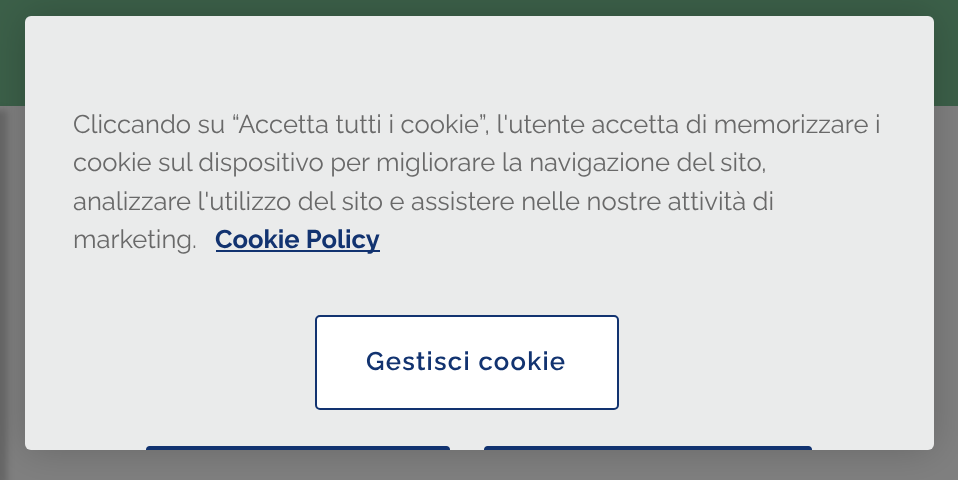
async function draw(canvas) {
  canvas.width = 958
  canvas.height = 480
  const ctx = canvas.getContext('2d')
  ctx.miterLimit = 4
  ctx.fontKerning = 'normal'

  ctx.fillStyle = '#808080'
  ctx.fillRect(0, 0, 958, 480)
  ctx.fillStyle = '#3c6049'
  ctx.fillRect(0, 0, 958, 106)
  ctx.fillStyle = '#00000033'
  ctx.filter = 'blur(3.5px)'
  ctx.beginPath()
  ctx.rect(-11, 110, 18, 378)
  ctx.fill()
  ctx.filter = 'none'
  ctx.filter = 'blur(20px)'
  ctx.beginPath()
  ctx.roundRect(25, 16, 909, 434, 6)
  ctx.fill()
  ctx.filter = 'none'
  ctx.fillStyle = '#eaebeb'
  ctx.beginPath()
  ctx.roundRect(25, 16, 909, 434, 6)
  ctx.fill()
  ctx.font = '25.6px Raleway'
  ctx.fillStyle = '#696969'
  ctx.fillText('Cliccando su “Accetta tutti i cookie”, l\'utente accetta di memorizzare i', 73, 133)
  ctx.fillText('cookie sul dispositivo per migliorare la navigazione del sito,', 73, 171)
  ctx.fillText('analizzare l\'utilizzo del sito e assistere nelle nostre attività di', 73, 210)
  ctx.fillText('marketing.', 73, 248)
  ctx.fillStyle = '#123370'
  ctx.fillRect(216, 250, 164, 2)
  ctx.font = 'bold 25.6px Raleway'
  ctx.fillText('Cookie Policy', 215, 248)
  ctx.fillStyle = '#fff'
  ctx.beginPath()
  ctx.roundRect(316, 316, 302, 93, 4)
  ctx.fill()
  ctx.strokeStyle = '#123370'
  ctx.lineWidth = 2
  ctx.stroke()
  ctx.letterSpacing = '1.25px'
  ctx.font = '600 25.6px Raleway'
  ctx.fillStyle = '#123370'
  ctx.fillText('Gestisci cookie', 366, 370)
  ctx.beginPath()
  ctx.roundRect(146, 446, 304, 4, [5, 5, 0, 0])
  ctx.fill()
  ctx.beginPath()
  ctx.moveTo(151, 446)
  ctx.bezierCurveTo(149, 446, 147, 448, 146, 450)
  ctx.lineTo(148, 450)
  ctx.bezierCurveTo(149, 449, 150, 448, 151, 448)
  ctx.lineTo(445, 448)
  ctx.bezierCurveTo(446, 448, 447, 449, 448, 450)
  ctx.lineTo(450, 450)
  ctx.bezierCurveTo(449, 448, 447, 446, 445, 446)
  ctx.closePath()
  ctx.fill()
  ctx.beginPath()
  ctx.roundRect(484, 446, 328, 4, [5, 5, 0, 0])
  ctx.fill()
  ctx.beginPath()
  ctx.moveTo(489, 446)
  ctx.bezierCurveTo(487, 446, 485, 448, 484, 450)
  ctx.lineTo(486, 450)
  ctx.bezierCurveTo(487, 449, 488, 448, 489, 448)
  ctx.lineTo(807, 448)
  ctx.bezierCurveTo(808, 448, 809, 449, 810, 450)
  ctx.lineTo(812, 450)
  ctx.bezierCurveTo(811, 448, 809, 446, 807, 446)
  ctx.closePath()
  ctx.fill()
}

draw(document.querySelector('canvas'))
